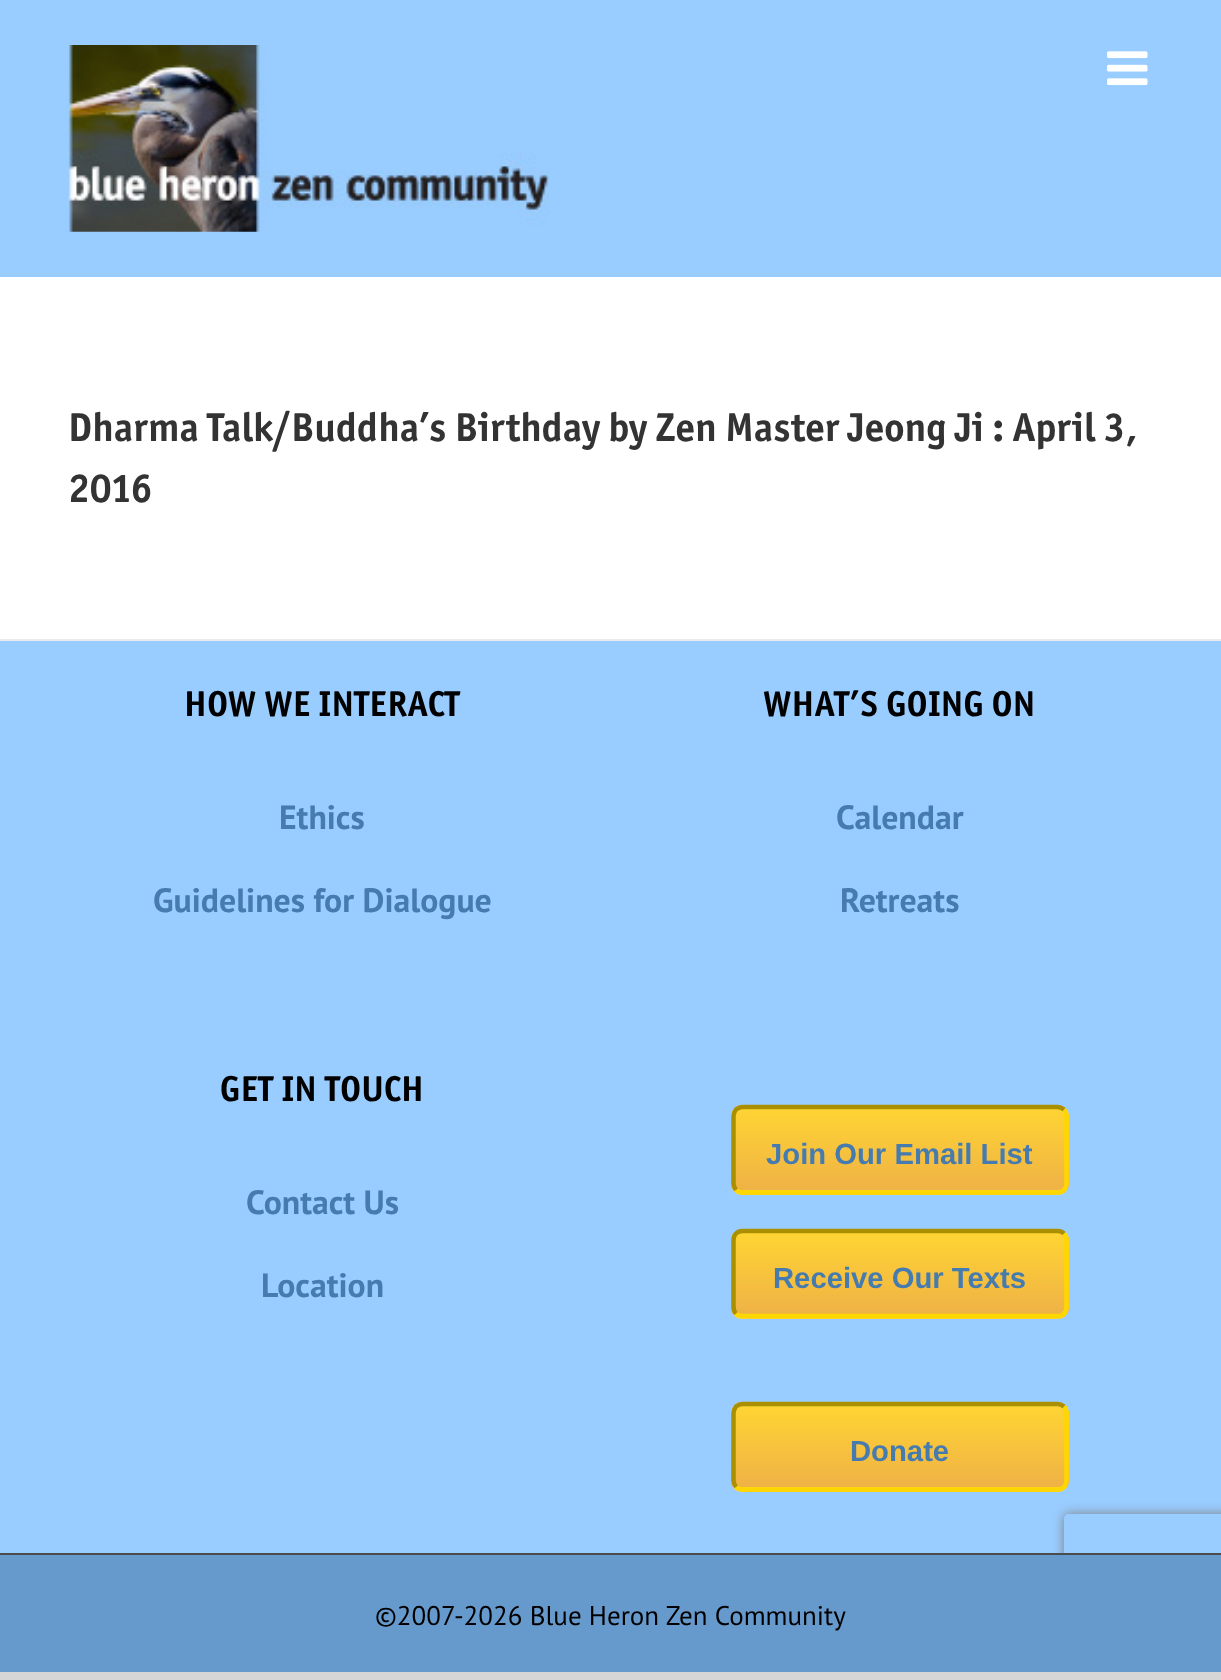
async function draw(canvas) {
  canvas.width = 1221
  canvas.height = 1680
  const ctx = canvas.getContext('2d')
  ctx.miterLimit = 4
  ctx.fontKerning = 'normal'
  async function loadImage(src) {
    const img = new Image()
    img.src = src
    await img.decode()
    return img
  }
  let gradient

  ctx.fillStyle = '#d7d6d6'
  ctx.fillRect(0, 0, 1221, 1680)
  ctx.fillStyle = '#99cdff'
  ctx.fillRect(0, 0, 1221, 277)
  ctx.drawImage(await loadImage('image0.png'), 67, 45, 482, 187)
  ctx.drawImage(await loadImage('image1.png'), 1107, 51, 41, 35)
  ctx.fillStyle = '#fff'
  ctx.fillRect(0, 277, 1221, 362)
  ctx.font = 'bold 40.5px "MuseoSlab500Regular"'
  ctx.fillStyle = '#333'
  ctx.fillText('Dharma Talk/Buddha’s Birthday by Zen Master Jeong Ji : April 3,', 68, 441)
  ctx.fillText('2016', 68, 502)
  ctx.fillStyle = '#9cf'
  ctx.fillRect(0, 641, 1221, 912)
  ctx.fillStyle = '#e9eaee'
  ctx.fillRect(0, 639, 1221, 2)
  ctx.letterSpacing = '0.5px'
  ctx.font = 'bold 36px "MuseoSlab500Regular"'
  ctx.fillStyle = '#000'
  ctx.fillText('HOW WE INTERACT', 184, 716)
  ctx.letterSpacing = '0px'
  ctx.font = 'bold 33.75px PT Sans'
  ctx.fillStyle = '#467bb0'
  ctx.fillText('Ethics', 279, 829)
  ctx.fillText('Guidelines for Dialogue', 153, 912)
  ctx.letterSpacing = '0.5px'
  ctx.font = 'bold 36px "MuseoSlab500Regular"'
  ctx.fillStyle = '#000'
  ctx.fillText('WHAT’S GOING ON', 763, 716)
  ctx.letterSpacing = '0px'
  ctx.font = 'bold 33.75px PT Sans'
  ctx.fillStyle = '#467bb0'
  ctx.fillText('Calendar', 836, 829)
  ctx.fillText('Retreats', 840, 912)
  ctx.letterSpacing = '0.5px'
  ctx.font = 'bold 36px "MuseoSlab500Regular"'
  ctx.fillStyle = '#000'
  ctx.fillText('GET IN TOUCH', 220, 1101)
  ctx.letterSpacing = '0px'
  ctx.font = 'bold 33.75px PT Sans'
  ctx.fillStyle = '#467bb0'
  ctx.fillText('Contact Us', 246, 1214)
  ctx.fillText('Location', 261, 1297)
  ctx.save()
  ctx.beginPath()
  ctx.roundRect(731, 1105, 338, 90, 11)
  ctx.clip()
  gradient = ctx.createLinearGradient(900, 1028, 900, 1109)
  gradient.addColorStop(0, '#ffd433')
  gradient.addColorStop(1, '#efb246')
  ctx.fillStyle = gradient
  ctx.fillRect(731, 1105, 338, 4)
  gradient = ctx.createLinearGradient(900, 1109, 900, 1190)
  gradient.addColorStop(0, '#ffd433')
  gradient.addColorStop(1, '#efb246')
  ctx.fillStyle = gradient
  ctx.fillRect(731, 1109, 338, 81)
  gradient = ctx.createLinearGradient(900, 1190, 900, 1271)
  gradient.addColorStop(0, '#ffd433')
  gradient.addColorStop(1, '#efb246')
  ctx.fillStyle = gradient
  ctx.fillRect(731, 1190, 338, 5)
  ctx.restore()
  ctx.beginPath()
  ctx.moveTo(1064, 1109.5)
  ctx.bezierCurveTo(1065.5, 1111.5, 1066.5, 1113.5, 1066.5, 1116)
  ctx.lineTo(1066.5, 1183.5)
  ctx.bezierCurveTo(1066.5, 1186, 1065.5, 1188, 1064, 1190)
  ctx.bezierCurveTo(1062, 1191.5, 1060, 1192.5, 1057.5, 1192.5)
  ctx.lineTo(742.5, 1192.5)
  ctx.bezierCurveTo(740, 1192.5, 738, 1191.5, 736, 1190)
  ctx.strokeStyle = '#ffd700'
  ctx.lineWidth = 4.5
  ctx.stroke()
  ctx.beginPath()
  ctx.moveTo(736, 1190)
  ctx.bezierCurveTo(734.5, 1188, 733.5, 1186, 733.5, 1183.5)
  ctx.lineTo(733.5, 1116)
  ctx.bezierCurveTo(733.5, 1113.5, 734.5, 1111.5, 736, 1109.5)
  ctx.bezierCurveTo(738, 1108, 740, 1107, 742.5, 1107)
  ctx.lineTo(1057.5, 1107)
  ctx.bezierCurveTo(1060, 1107, 1062, 1108, 1064, 1109.5)
  ctx.strokeStyle = '#aa8f00'
  ctx.stroke()
  ctx.font = 'bold 29.25px Liberation Sans'
  ctx.fillText('Join Our Email List', 766, 1164)
  ctx.save()
  ctx.beginPath()
  ctx.roundRect(731, 1229, 338, 90, 11)
  ctx.clip()
  gradient = ctx.createLinearGradient(900, 1233, 900, 1314)
  gradient.addColorStop(0, '#ffd433')
  gradient.addColorStop(1, '#efb246')
  ctx.fillStyle = gradient
  ctx.fillRect(731, 1233, 338, 81)
  gradient = ctx.createLinearGradient(900, 1314, 900, 1395)
  gradient.addColorStop(0, '#ffd433')
  gradient.addColorStop(1, '#efb246')
  ctx.fillStyle = gradient
  ctx.fillRect(731, 1314, 338, 5)
  ctx.restore()
  ctx.beginPath()
  ctx.moveTo(1064, 1233.5)
  ctx.bezierCurveTo(1065.5, 1235, 1066.5, 1237.5, 1066.5, 1240)
  ctx.lineTo(1066.5, 1307)
  ctx.bezierCurveTo(1066.5, 1309.5, 1065.5, 1312, 1064, 1313.5)
  ctx.bezierCurveTo(1062, 1315.5, 1060, 1316, 1057.5, 1316)
  ctx.lineTo(742.5, 1316)
  ctx.bezierCurveTo(740, 1316, 738, 1315.5, 736, 1313.5)
  ctx.strokeStyle = '#ffd700'
  ctx.stroke()
  ctx.beginPath()
  ctx.moveTo(736, 1313.5)
  ctx.bezierCurveTo(734.5, 1312, 733.5, 1309.5, 733.5, 1307)
  ctx.lineTo(733.5, 1240)
  ctx.bezierCurveTo(733.5, 1237.5, 734.5, 1235, 736, 1233.5)
  ctx.bezierCurveTo(738, 1231.5, 740, 1231, 742.5, 1231)
  ctx.lineTo(1057.5, 1231)
  ctx.bezierCurveTo(1060, 1231, 1062, 1231.5, 1064, 1233.5)
  ctx.strokeStyle = '#aa8f00'
  ctx.stroke()
  ctx.fillText('Receive Our Texts', 773, 1288)
  ctx.save()
  ctx.beginPath()
  ctx.roundRect(731, 1402, 338, 90, 11)
  ctx.clip()
  gradient = ctx.createLinearGradient(900, 1325, 900, 1406)
  gradient.addColorStop(0, '#ffd433')
  gradient.addColorStop(1, '#efb246')
  ctx.fillStyle = gradient
  ctx.fillRect(731, 1402, 338, 4)
  gradient = ctx.createLinearGradient(900, 1406, 900, 1487)
  gradient.addColorStop(0, '#ffd433')
  gradient.addColorStop(1, '#efb246')
  ctx.fillStyle = gradient
  ctx.fillRect(731, 1406, 338, 81)
  gradient = ctx.createLinearGradient(900, 1487, 900, 1568)
  gradient.addColorStop(0, '#ffd433')
  gradient.addColorStop(1, '#efb246')
  ctx.fillStyle = gradient
  ctx.fillRect(731, 1487, 338, 5)
  ctx.restore()
  ctx.beginPath()
  ctx.moveTo(1064, 1406.5)
  ctx.bezierCurveTo(1065.5, 1408.5, 1066.5, 1410.5, 1066.5, 1413)
  ctx.lineTo(1066.5, 1480.5)
  ctx.bezierCurveTo(1066.5, 1483, 1065.5, 1485, 1064, 1487)
  ctx.bezierCurveTo(1062, 1488.5, 1060, 1489.5, 1057.5, 1489.5)
  ctx.lineTo(742.5, 1489.5)
  ctx.bezierCurveTo(740, 1489.5, 738, 1488.5, 736, 1487)
  ctx.strokeStyle = '#ffd700'
  ctx.stroke()
  ctx.beginPath()
  ctx.moveTo(736, 1487)
  ctx.bezierCurveTo(734.5, 1485, 733.5, 1483, 733.5, 1480.5)
  ctx.lineTo(733.5, 1413)
  ctx.bezierCurveTo(733.5, 1410.5, 734.5, 1408.5, 736, 1406.5)
  ctx.bezierCurveTo(738, 1405, 740, 1404, 742.5, 1404)
  ctx.lineTo(1057.5, 1404)
  ctx.bezierCurveTo(1060, 1404, 1062, 1405, 1064, 1406.5)
  ctx.strokeStyle = '#aa8f00'
  ctx.stroke()
  ctx.fillText('Donate', 850, 1461)
  ctx.save()
  ctx.beginPath()
  ctx.moveTo(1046, 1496)
  ctx.lineTo(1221, 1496)
  ctx.lineTo(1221, 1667)
  ctx.lineTo(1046, 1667)
  ctx.closePath()
  ctx.moveTo(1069, 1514)
  ctx.lineTo(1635, 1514)
  ctx.bezierCurveTo(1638, 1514, 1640, 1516, 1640, 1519)
  ctx.lineTo(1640, 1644)
  ctx.bezierCurveTo(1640, 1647, 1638, 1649, 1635, 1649)
  ctx.lineTo(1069, 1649)
  ctx.bezierCurveTo(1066, 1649, 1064, 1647, 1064, 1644)
  ctx.lineTo(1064, 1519)
  ctx.bezierCurveTo(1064, 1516, 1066, 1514, 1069, 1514)
  ctx.closePath()
  ctx.clip('evenodd')
  ctx.fillStyle = '#808080'
  ctx.filter = 'blur(5.5px)'
  ctx.beginPath()
  ctx.roundRect(1064, 1514, 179, 135, 5)
  ctx.fill()
  ctx.filter = 'none'
  ctx.restore()
  ctx.fillStyle = '#69c'
  ctx.fillRect(0, 1555, 1221, 117)
  ctx.fillStyle = '#4b4c4d'
  ctx.fillRect(0, 1553, 1221, 2)
  ctx.font = '27px PT Sans'
  ctx.fillStyle = '#000'
  ctx.fillText('©2007-2026 Blue Heron Zen Community', 375, 1625)
}

draw(document.querySelector('canvas'))
